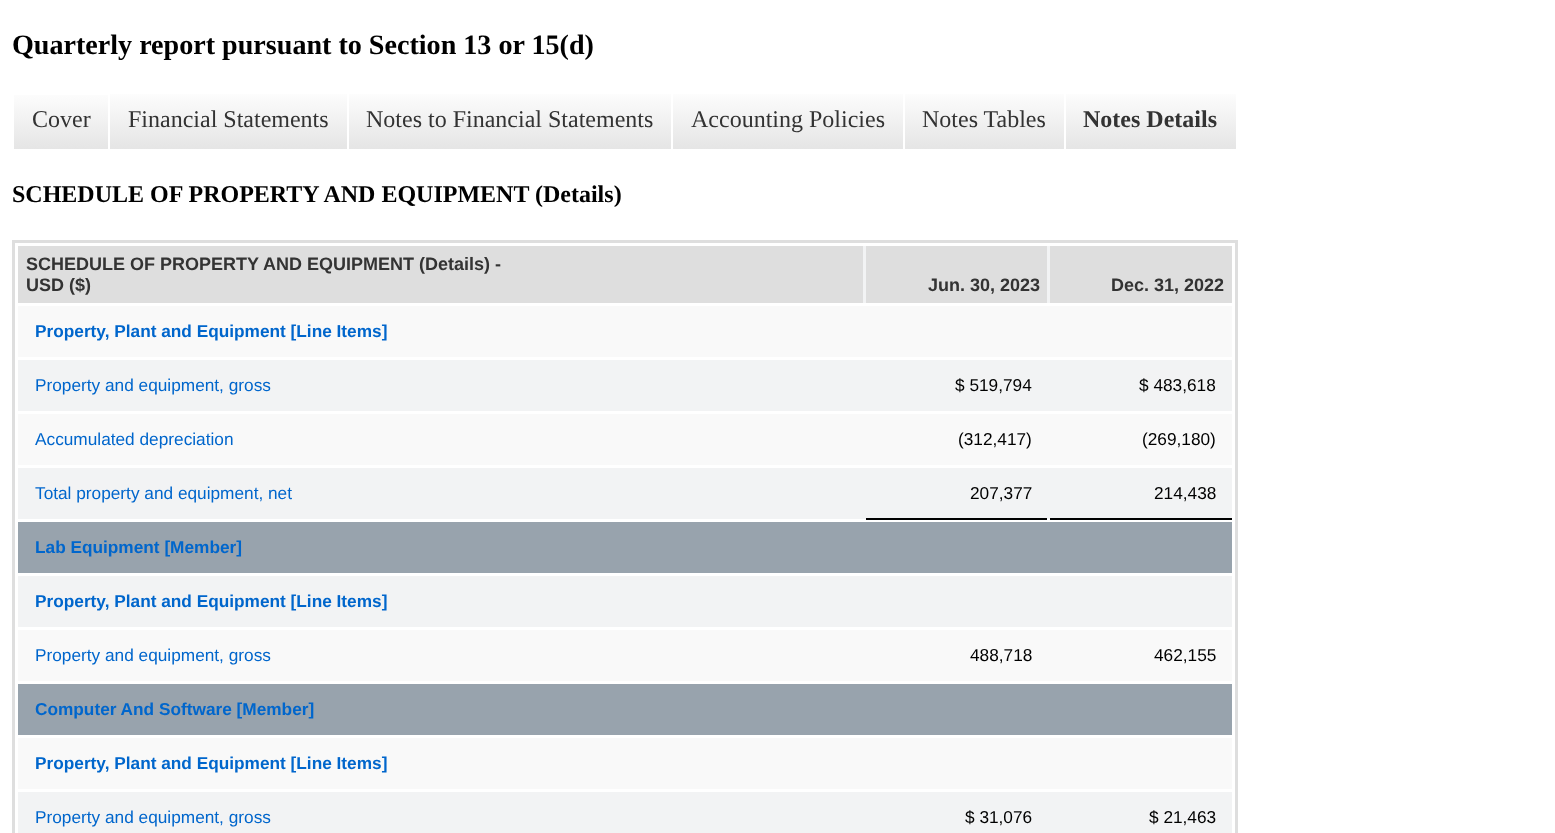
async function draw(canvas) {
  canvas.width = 1555
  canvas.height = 833
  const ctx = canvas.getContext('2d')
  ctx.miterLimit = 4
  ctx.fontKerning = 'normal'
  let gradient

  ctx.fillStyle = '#fff'
  ctx.fillRect(0, 0, 1555, 833)
  ctx.font = 'bold 28.1px Liberation Serif'
  ctx.fillStyle = '#000'
  ctx.fillText('Quarterly report pursuant to Section 13 or 15(d)', 12, 54)
  gradient = ctx.createLinearGradient(61, 89, 61, 149)
  gradient.addColorStop(0, '#fff')
  gradient.addColorStop(1, '#e5e5e5')
  ctx.fillStyle = gradient
  ctx.fillRect(14, 95, 94, 54)
  ctx.font = '24px Liberation Serif'
  ctx.fillStyle = '#333'
  ctx.fillText('Cover', 32, 127)
  gradient = ctx.createLinearGradient(228, 88, 228, 149)
  gradient.addColorStop(0, '#fff')
  gradient.addColorStop(1, '#e5e5e5')
  ctx.fillStyle = gradient
  ctx.fillRect(110, 94, 237, 55)
  ctx.fillStyle = '#333'
  ctx.fillText('Financial Statements', 128, 127)
  gradient = ctx.createLinearGradient(509, 88, 509, 149)
  gradient.addColorStop(0, '#fff')
  gradient.addColorStop(1, '#e5e5e5')
  ctx.fillStyle = gradient
  ctx.fillRect(349, 94, 322, 55)
  ctx.fillStyle = '#333'
  ctx.fillText('Notes to Financial Statements', 366, 127)
  gradient = ctx.createLinearGradient(788, 88, 788, 149)
  gradient.addColorStop(0, '#fff')
  gradient.addColorStop(1, '#e5e5e5')
  ctx.fillStyle = gradient
  ctx.fillRect(673, 94, 230, 55)
  ctx.fillStyle = '#333'
  ctx.fillText('Accounting Policies', 691, 127)
  gradient = ctx.createLinearGradient(984, 88, 984, 149)
  gradient.addColorStop(0, '#fff')
  gradient.addColorStop(1, '#e5e5e5')
  ctx.fillStyle = gradient
  ctx.fillRect(905, 94, 159, 55)
  ctx.fillStyle = '#333'
  ctx.fillText('Notes Tables', 922, 127)
  gradient = ctx.createLinearGradient(1151, 88, 1151, 149)
  gradient.addColorStop(0, '#fff')
  gradient.addColorStop(1, '#e5e5e5')
  ctx.fillStyle = gradient
  ctx.fillRect(1066, 94, 170, 55)
  ctx.font = 'bold 24px Liberation Serif'
  ctx.fillStyle = '#333'
  ctx.fillText('Notes Details', 1083, 127)
  ctx.fillStyle = '#000'
  ctx.fillText('SCHEDULE OF PROPERTY AND EQUIPMENT (Details)', 12, 202)
  ctx.strokeStyle = '#dedede'
  ctx.lineWidth = 3
  ctx.strokeRect(13.5, 241.5, 1223, 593)
  ctx.fillStyle = '#f2f3f4'
  ctx.fillRect(863, 246, 187, 57)
  ctx.fillStyle = '#dedede'
  ctx.fillRect(18, 246, 845, 57)
  ctx.font = 'bold 18px Liberation Sans'
  ctx.fillStyle = '#333'
  ctx.fillText('SCHEDULE OF PROPERTY AND EQUIPMENT (Details) -', 26, 270)
  ctx.fillText('USD ($)', 26, 291)
  ctx.fillStyle = '#dedede'
  ctx.fillRect(866, 246, 181, 57)
  ctx.fillStyle = '#333'
  ctx.fillText('Jun. 30, 2023', 928, 291)
  ctx.fillStyle = '#dedede'
  ctx.fillRect(1050, 246, 182, 57)
  ctx.fillStyle = '#333'
  ctx.fillText('Dec. 31, 2022', 1111, 291)
  ctx.fillStyle = '#f9f9f9'
  ctx.fillRect(18, 306, 1214, 51)
  ctx.font = 'bold 17.25px Liberation Sans'
  ctx.fillStyle = '#06c'
  ctx.fillText('Property, Plant and Equipment [Line Items]', 35, 337)
  ctx.fillStyle = '#f2f3f4'
  ctx.fillRect(18, 360, 1214, 51)
  ctx.font = '17.25px Liberation Sans'
  ctx.fillStyle = '#06c'
  ctx.fillText('Property and equipment, gross', 35, 391)
  ctx.fillStyle = '#000'
  ctx.fillText('$ 519,794', 955, 391)
  ctx.fillText('$ 483,618', 1139, 391)
  ctx.fillStyle = '#f9f9f9'
  ctx.fillRect(18, 414, 1214, 51)
  ctx.fillStyle = '#06c'
  ctx.fillText('Accumulated depreciation', 35, 445)
  ctx.fillStyle = '#000'
  ctx.fillText('(312,417)', 958, 445)
  ctx.fillText('(269,180)', 1142, 445)
  ctx.fillStyle = '#f2f3f4'
  ctx.fillRect(18, 468, 1214, 51)
  ctx.fillStyle = '#06c'
  ctx.fillText('Total property and equipment, net', 35, 499)
  ctx.fillStyle = '#000'
  ctx.fillRect(866, 518, 181, 2)
  ctx.fillText('207,377', 970, 499)
  ctx.fillRect(1050, 518, 182, 2)
  ctx.fillText('214,438', 1154, 499)
  ctx.fillStyle = '#98a3ad'
  ctx.fillRect(18, 522, 1214, 51)
  ctx.font = 'bold 17.25px Liberation Sans'
  ctx.fillStyle = '#06c'
  ctx.fillText('Lab Equipment [Member]', 35, 553)
  ctx.fillStyle = '#f2f3f4'
  ctx.fillRect(18, 576, 1214, 51)
  ctx.fillStyle = '#06c'
  ctx.fillText('Property, Plant and Equipment [Line Items]', 35, 607)
  ctx.fillStyle = '#f9f9f9'
  ctx.fillRect(18, 630, 1214, 51)
  ctx.font = '17.25px Liberation Sans'
  ctx.fillStyle = '#06c'
  ctx.fillText('Property and equipment, gross', 35, 661)
  ctx.fillStyle = '#000'
  ctx.fillText('488,718', 970, 661)
  ctx.fillText('462,155', 1154, 661)
  ctx.fillStyle = '#98a3ad'
  ctx.fillRect(18, 684, 1214, 51)
  ctx.font = 'bold 17.25px Liberation Sans'
  ctx.fillStyle = '#06c'
  ctx.fillText('Computer And Software [Member]', 35, 715)
  ctx.fillStyle = '#f9f9f9'
  ctx.fillRect(18, 738, 1214, 51)
  ctx.fillStyle = '#06c'
  ctx.fillText('Property, Plant and Equipment [Line Items]', 35, 769)
  ctx.fillStyle = '#f2f3f4'
  ctx.fillRect(18, 792, 1214, 41)
  ctx.font = '17.25px Liberation Sans'
  ctx.fillStyle = '#06c'
  ctx.fillText('Property and equipment, gross', 35, 823)
  ctx.fillStyle = '#000'
  ctx.fillText('$ 31,076', 965, 823)
  ctx.fillText('$ 21,463', 1149, 823)
}

draw(document.querySelector('canvas'))
